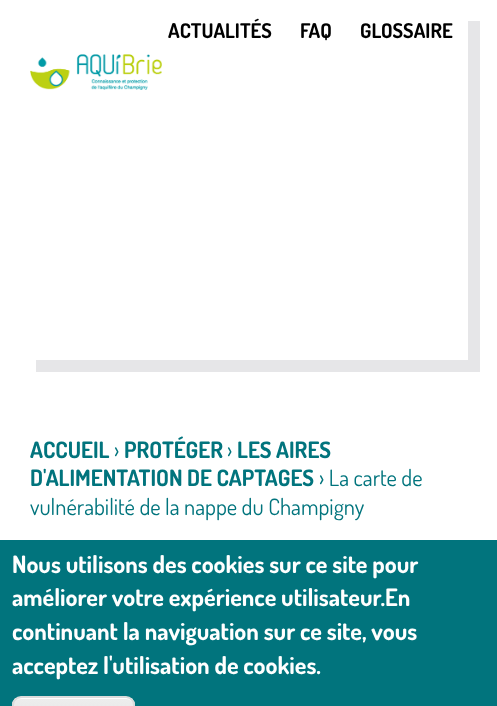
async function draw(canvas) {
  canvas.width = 497
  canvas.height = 706
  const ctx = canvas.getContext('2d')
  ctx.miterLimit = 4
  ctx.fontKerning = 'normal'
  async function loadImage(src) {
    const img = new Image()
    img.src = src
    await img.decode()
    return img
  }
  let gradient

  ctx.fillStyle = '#fff'
  ctx.fillRect(0, 0, 497, 706)
  ctx.fillStyle = '#e6e6e8'
  ctx.beginPath()
  ctx.moveTo(36, 360)
  ctx.lineTo(36, 372)
  ctx.lineTo(480, 372)
  ctx.lineTo(480, 21)
  ctx.lineTo(468, 21)
  ctx.lineTo(468, 360)
  ctx.closePath()
  ctx.fill()
  ctx.font = 'bold 20.25px Dosis'
  ctx.fillStyle = '#000'
  ctx.fillText('ACTUALITÉS', 168, 38)
  ctx.fillText('FAQ', 300, 38)
  ctx.fillText('GLOSSAIRE', 360, 38)
  ctx.drawImage(await loadImage('image0.png'), 30, 54, 132, 36)
  ctx.font = 'bold 22.5px Dosis'
  ctx.fillStyle = '#01747d'
  ctx.fillText('ACCUEIL', 30, 458)
  ctx.font = '22.5px Dosis'
  ctx.fillText('›', 114, 458)
  ctx.font = 'bold 22.5px Dosis'
  ctx.fillText('PROTÉGER', 124, 458)
  ctx.font = '22.5px Dosis'
  ctx.fillText('›', 227, 458)
  ctx.font = 'bold 22.5px Dosis'
  ctx.fillText('LES AIRES', 237, 458)
  ctx.fillText('D\'ALIMENTATION DE CAPTAGES', 30, 486)
  ctx.font = '22.5px Dosis'
  ctx.fillText('› La carte de', 319, 486)
  ctx.fillText('vulnérabilité de la nappe du Champigny', 30, 515)
  ctx.fillRect(0, 540, 497, 166)
  ctx.font = 'bold 24px Dosis'
  ctx.fillStyle = '#fff'
  ctx.fillText('Nous utilisons des cookies sur ce site pour', 12, 573)
  ctx.fillText('améliorer votre expérience utilisateur.En', 12, 606)
  ctx.fillText('continuant la naviguation sur ce site, vous', 12, 640)
  ctx.fillText('acceptez l\'utilisation de cookies.', 12, 674)
  ctx.save()
  ctx.beginPath()
  ctx.roundRect(12, 696, 123, 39, 9)
  ctx.clip()
  gradient = ctx.createLinearGradient(74, 698, 74, 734)
  gradient.addColorStop(0.05, '#ededed')
  gradient.addColorStop(1, '#dfdfdf')
  ctx.fillStyle = gradient
  ctx.fillRect(12, 698, 123, 8)
  ctx.restore()
  ctx.beginPath()
  ctx.moveTo(21, 699)
  ctx.lineTo(126, 699)
  ctx.bezierCurveTo(130, 699, 134, 702, 134, 706)
  ctx.bezierCurveTo(134, 702, 130, 698, 126, 698)
  ctx.lineTo(22, 698)
  ctx.bezierCurveTo(18, 698, 14, 702, 14, 706)
  ctx.bezierCurveTo(14, 702, 17, 699, 21, 699)
  ctx.closePath()
  ctx.fill()
  ctx.beginPath()
  ctx.roundRect(13, 697, 121, 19, 8)
  ctx.strokeStyle = '#dcdcdc'
  ctx.lineWidth = 2
  ctx.stroke()
}

draw(document.querySelector('canvas'))
